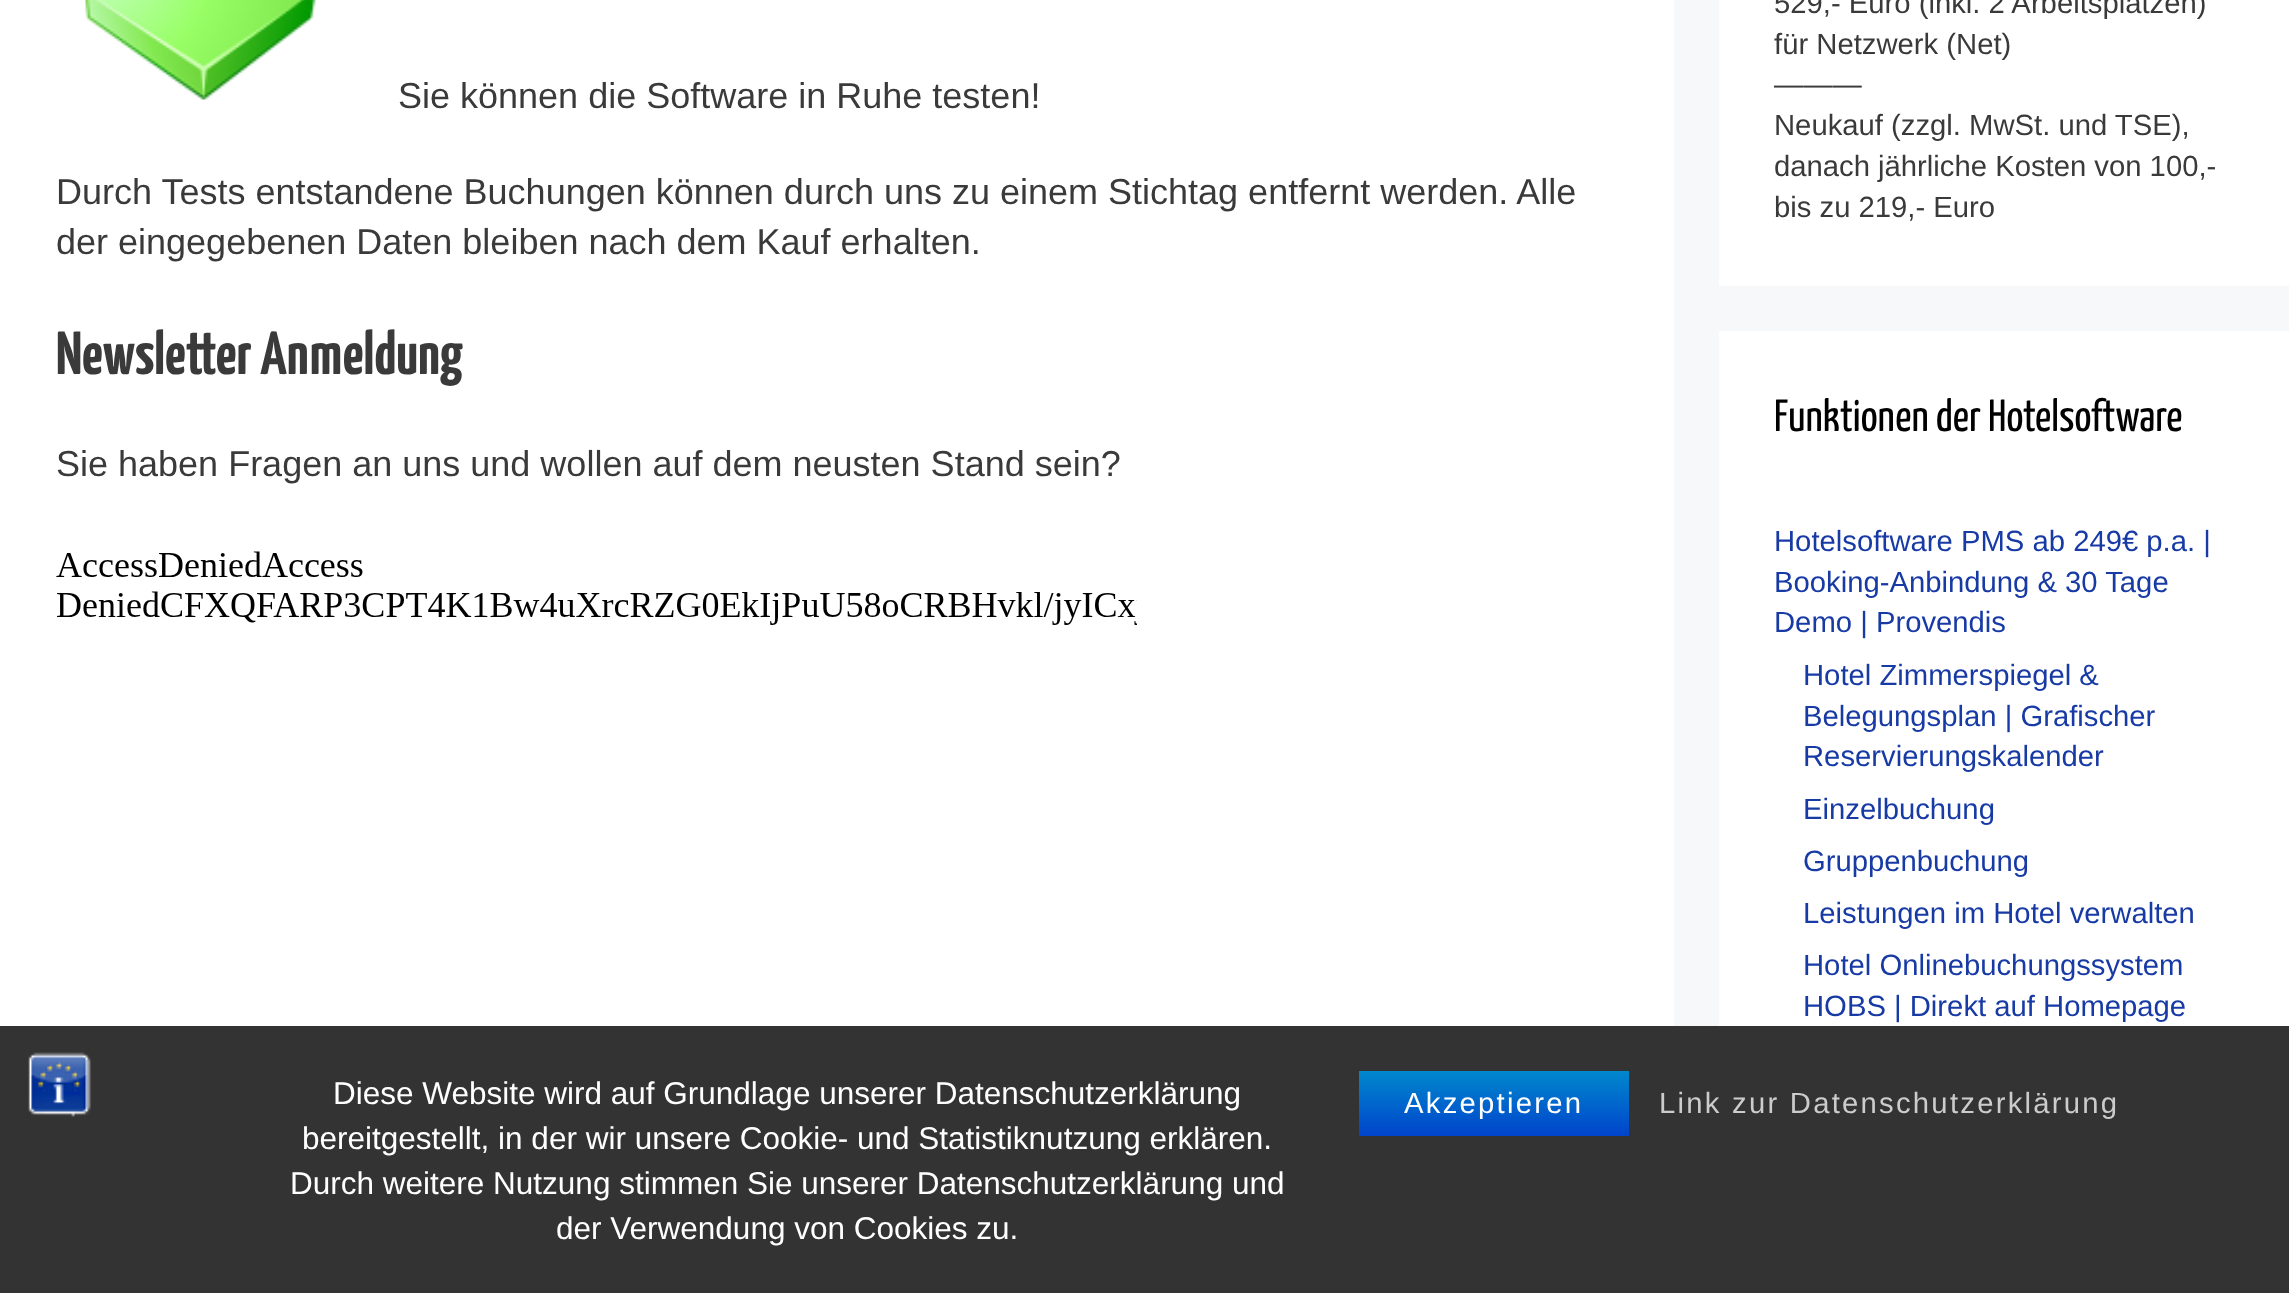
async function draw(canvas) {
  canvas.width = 2289
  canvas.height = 1293
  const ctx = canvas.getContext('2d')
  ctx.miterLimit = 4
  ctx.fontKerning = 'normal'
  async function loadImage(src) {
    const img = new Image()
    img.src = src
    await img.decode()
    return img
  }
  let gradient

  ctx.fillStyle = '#f7f8f9'
  ctx.fillRect(0, 0, 2289, 1293)
  ctx.fillStyle = '#fff'
  ctx.fillRect(0, 0, 1674, 1026)
  ctx.drawImage(await loadImage('image0.png'), 85, 0, 231, 100)
  ctx.font = '36px Liberation Sans'
  ctx.fillStyle = '#3a3a3a'
  ctx.fillText('Sie können die Software in Ruhe testen!', 398, 108)
  ctx.fillText('Durch Tests entstandene Buchungen können durch uns zu einem Stichtag entfernt werden. Alle', 56, 204)
  ctx.fillText('der eingegebenen Daten bleiben nach dem Kauf erhalten.', 56, 254)
  ctx.font = 'bold 60.75px Yanone Kaffeesatz'
  ctx.fillText('Newsletter Anmeldung', 56, 374)
  ctx.font = '36px Liberation Sans'
  ctx.fillText('Sie haben Fragen an uns und wollen auf dem neusten Stand sein?', 56, 476)
  ctx.drawImage(await loadImage('image1.png'), 56, 551, 1081, 74)
  ctx.fillStyle = '#fff'
  ctx.fillRect(1719, 0, 570, 286)
  ctx.font = '29.25px Liberation Sans'
  ctx.fillStyle = '#3a3a3a'
  ctx.fillText('529,- Euro (inkl. 2 Arbeitsplätzen)', 1774, 13)
  ctx.fillText('für Netzwerk (Net)', 1774, 54)
  ctx.fillText('———', 1774, 94)
  ctx.fillText('Neukauf (zzgl. MwSt. und TSE),', 1774, 135)
  ctx.fillText('danach jährliche Kosten von 100,-', 1774, 176)
  ctx.fillText('bis zu 219,- Euro', 1774, 217)
  ctx.fillStyle = '#fff'
  ctx.fillRect(1719, 331, 570, 695)
  ctx.font = '45px Yanone Kaffeesatz'
  ctx.fillStyle = '#000'
  ctx.fillText('Funktionen der Hotelsoftware', 1774, 431)
  ctx.font = '29.25px Liberation Sans'
  ctx.fillStyle = '#173aa5'
  ctx.fillText('Hotelsoftware PMS ab 249€ p.a. |', 1774, 551)
  ctx.fillText('Booking-Anbindung & 30 Tage', 1774, 592)
  ctx.fillText('Demo | Provendis', 1774, 632)
  ctx.fillText('Hotel Zimmerspiegel &', 1803, 685)
  ctx.fillText('Belegungsplan | Grafischer', 1803, 726)
  ctx.fillText('Reservierungskalender', 1803, 766)
  ctx.fillText('Einzelbuchung', 1803, 819)
  ctx.fillText('Gruppenbuchung', 1803, 871)
  ctx.fillText('Leistungen im Hotel verwalten', 1803, 923)
  ctx.fillText('Hotel Onlinebuchungssystem', 1803, 975)
  ctx.fillText('HOBS | Direkt auf Homepage', 1803, 1016)
  ctx.fillStyle = '#333'
  ctx.fillRect(0, 1026, 2289, 267)
  ctx.drawImage(await loadImage('image2.png'), 28, 1052, 63, 65)
  ctx.font = '31.5px Liberation Sans'
  ctx.fillStyle = '#fff'
  ctx.fillText('Diese Website wird auf Grundlage unserer Datenschutzerklärung', 333, 1104)
  ctx.fillText('bereitgestellt, in der wir unsere Cookie- und Statistiknutzung erklären.', 302, 1149)
  ctx.fillText('Durch weitere Nutzung stimmen Sie unserer Datenschutzerklärung und', 290, 1194)
  ctx.fillText('der Verwendung von Cookies zu.', 556, 1239)
  gradient = ctx.createLinearGradient(1494, 1071, 1494, 1136)
  gradient.addColorStop(0, '#08c')
  gradient.addColorStop(1, '#04c')
  ctx.fillStyle = gradient
  ctx.fillRect(1359, 1071, 270, 65)
  ctx.letterSpacing = '2.25px'
  ctx.font = '29.25px Liberation Sans'
  ctx.fillStyle = '#fff'
  ctx.fillText('Akzeptieren', 1404, 1113)
  ctx.fillStyle = '#ccc'
  ctx.fillText('Link zur Datenschutzerklärung', 1659, 1113)
}

draw(document.querySelector('canvas'))
